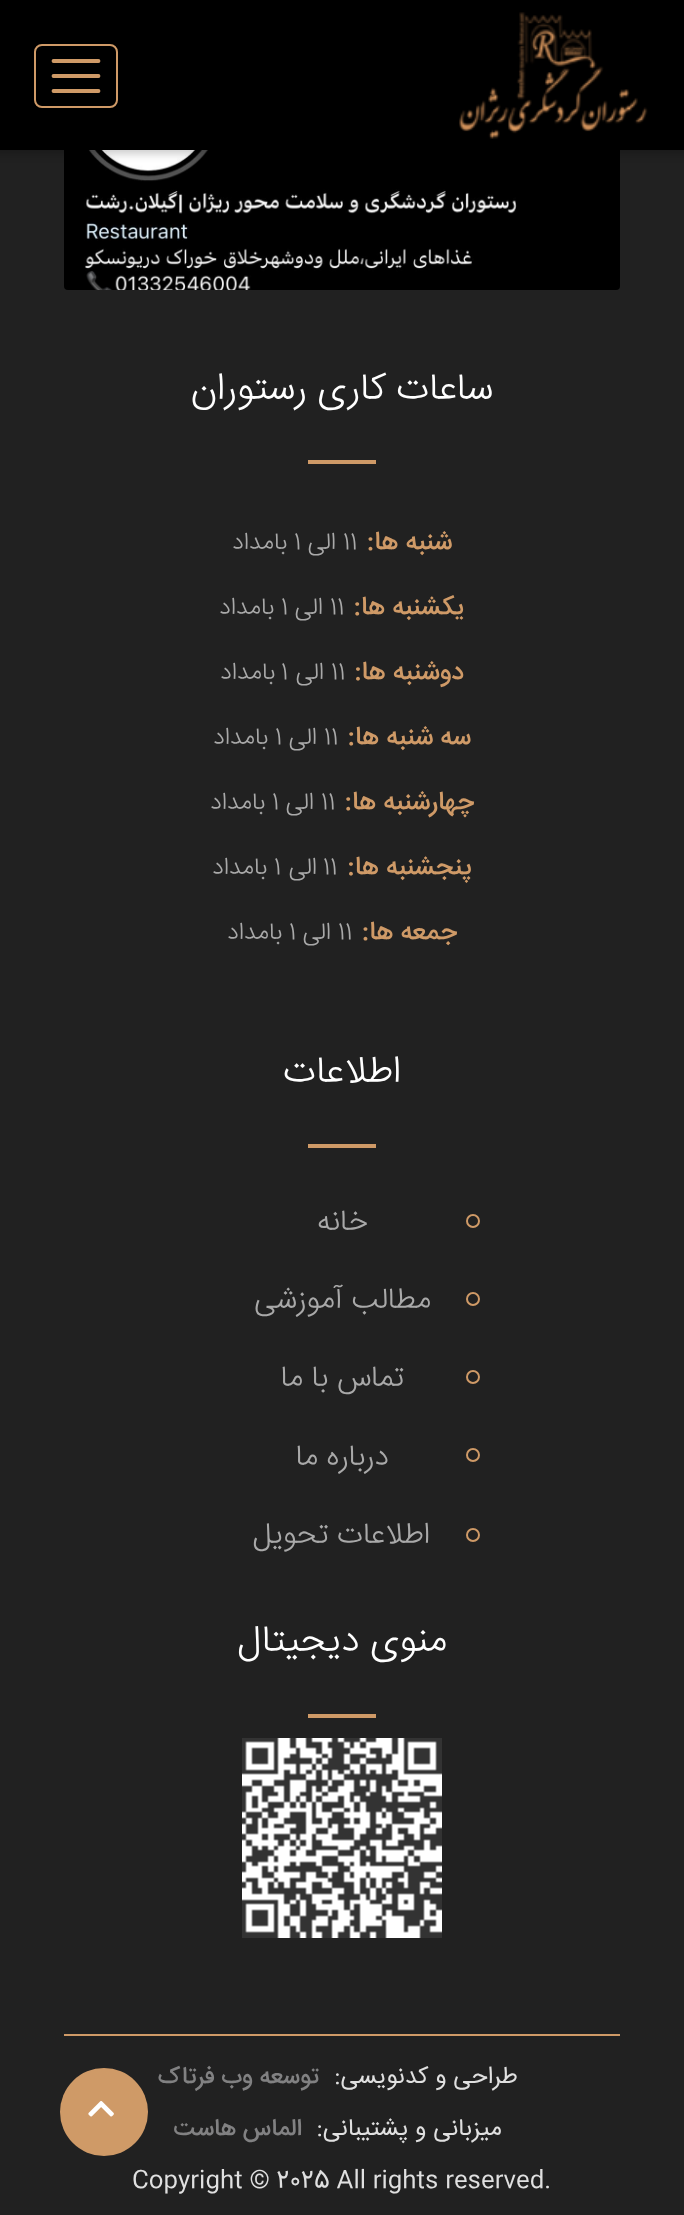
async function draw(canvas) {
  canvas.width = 684
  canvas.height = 2215
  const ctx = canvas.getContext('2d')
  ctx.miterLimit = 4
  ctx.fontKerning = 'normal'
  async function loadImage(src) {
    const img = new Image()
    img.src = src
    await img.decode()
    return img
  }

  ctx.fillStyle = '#212121'
  ctx.fillRect(0, 0, 684, 2215)
  ctx.drawImage(await loadImage('image1.png'), 64, 150, 556, 140)
  ctx.fillStyle = '#00000033'
  ctx.filter = 'blur(4px)'
  ctx.beginPath()
  ctx.rect(-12, 0, 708, 154)
  ctx.fill()
  ctx.filter = 'none'
  ctx.fillStyle = '#000'
  ctx.fillRect(0, 0, 684, 150)
  ctx.drawImage(await loadImage('image0.png'), 459, 12, 189, 127)
  ctx.beginPath()
  ctx.roundRect(35, 45, 82, 62, 7)
  ctx.strokeStyle = '#cf9a67'
  ctx.lineWidth = 2
  ctx.stroke()
  ctx.beginPath()
  ctx.moveTo(53.5, 61)
  ctx.lineTo(98.5, 61)
  ctx.moveTo(53.5, 76)
  ctx.lineTo(98.5, 76)
  ctx.moveTo(53.5, 91)
  ctx.lineTo(98.5, 91)
  ctx.lineWidth = 3.8
  ctx.lineCap = 'round'
  ctx.stroke()
  ctx.direction = 'rtl'
  ctx.font = '300 38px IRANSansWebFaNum'
  ctx.fillStyle = '#fff'
  ctx.fillText('ساعات کاری رستوران', 493, 399)
  ctx.fillStyle = '#cf9a67'
  ctx.fillRect(308, 460, 68, 4)
  ctx.font = '500 26px IRANSansWebFaNum'
  ctx.fillText('شنبه ها:', 452, 549)
  ctx.direction = 'ltr'
  ctx.font = '300 24px IRANSansWebFaNum'
  ctx.fillStyle = '#a9a9a9'
  ctx.fillText('11', 343, 549)
  ctx.direction = 'rtl'
  ctx.fillText('الی', 336, 549)
  ctx.direction = 'ltr'
  ctx.fillText('1', 294, 549)
  ctx.direction = 'rtl'
  ctx.fillText('بامداد', 287, 549)
  ctx.font = '500 26px IRANSansWebFaNum'
  ctx.fillStyle = '#cf9a67'
  ctx.fillText('یکشنبه ها:', 465, 614)
  ctx.direction = 'ltr'
  ctx.font = '300 24px IRANSansWebFaNum'
  ctx.fillStyle = '#a9a9a9'
  ctx.fillText('11', 330, 614)
  ctx.direction = 'rtl'
  ctx.fillText('الی', 323, 614)
  ctx.direction = 'ltr'
  ctx.fillText('1', 281, 614)
  ctx.direction = 'rtl'
  ctx.fillText('بامداد', 274, 614)
  ctx.font = '500 26px IRANSansWebFaNum'
  ctx.fillStyle = '#cf9a67'
  ctx.fillText('دوشنبه ها:', 464, 679)
  ctx.direction = 'ltr'
  ctx.font = '300 24px IRANSansWebFaNum'
  ctx.fillStyle = '#a9a9a9'
  ctx.fillText('11', 331, 679)
  ctx.direction = 'rtl'
  ctx.fillText('الی', 324, 679)
  ctx.direction = 'ltr'
  ctx.fillText('1', 281, 679)
  ctx.direction = 'rtl'
  ctx.fillText('بامداد', 275, 679)
  ctx.font = '500 26px IRANSansWebFaNum'
  ctx.fillStyle = '#cf9a67'
  ctx.fillText('سه شنبه ها:', 471, 744)
  ctx.direction = 'ltr'
  ctx.font = '300 24px IRANSansWebFaNum'
  ctx.fillStyle = '#a9a9a9'
  ctx.fillText('11', 324, 744)
  ctx.direction = 'rtl'
  ctx.fillText('الی', 317, 744)
  ctx.direction = 'ltr'
  ctx.fillText('1', 275, 744)
  ctx.direction = 'rtl'
  ctx.fillText('بامداد', 268, 744)
  ctx.font = '500 26px IRANSansWebFaNum'
  ctx.fillStyle = '#cf9a67'
  ctx.fillText('چهارشنبه ها:', 474, 809)
  ctx.direction = 'ltr'
  ctx.font = '300 24px IRANSansWebFaNum'
  ctx.fillStyle = '#a9a9a9'
  ctx.fillText('11', 321, 809)
  ctx.direction = 'rtl'
  ctx.fillText('الی', 314, 809)
  ctx.direction = 'ltr'
  ctx.fillText('1', 272, 809)
  ctx.direction = 'rtl'
  ctx.fillText('بامداد', 265, 809)
  ctx.font = '500 26px IRANSansWebFaNum'
  ctx.fillStyle = '#cf9a67'
  ctx.fillText('پنجشنبه ها:', 472, 874)
  ctx.direction = 'ltr'
  ctx.font = '300 24px IRANSansWebFaNum'
  ctx.fillStyle = '#a9a9a9'
  ctx.fillText('11', 323, 874)
  ctx.direction = 'rtl'
  ctx.fillText('الی', 317, 874)
  ctx.direction = 'ltr'
  ctx.fillText('1', 274, 874)
  ctx.direction = 'rtl'
  ctx.fillText('بامداد', 267, 874)
  ctx.font = '500 26px IRANSansWebFaNum'
  ctx.fillStyle = '#cf9a67'
  ctx.fillText('جمعه ها:', 457, 939)
  ctx.direction = 'ltr'
  ctx.font = '300 24px IRANSansWebFaNum'
  ctx.fillStyle = '#a9a9a9'
  ctx.fillText('11', 338, 939)
  ctx.direction = 'rtl'
  ctx.fillText('الی', 331, 939)
  ctx.direction = 'ltr'
  ctx.fillText('1', 289, 939)
  ctx.direction = 'rtl'
  ctx.fillText('بامداد', 282, 939)
  ctx.font = '300 38px IRANSansWebFaNum'
  ctx.fillStyle = '#fff'
  ctx.fillText('اطلاعات', 401, 1082)
  ctx.fillStyle = '#cf9a67'
  ctx.fillRect(308, 1144, 68, 4)
  ctx.beginPath()
  ctx.arc(473, 1221, 6, 0, 2 * Math.PI)
  ctx.lineWidth = 2
  ctx.stroke()
  ctx.font = '300 30px IRANSansWebFaNum'
  ctx.fillStyle = '#a9a9a9'
  ctx.fillText('خانه', 368, 1230)
  ctx.beginPath()
  ctx.arc(473, 1299, 6, 0, 2 * Math.PI)
  ctx.stroke()
  ctx.fillText('مطالب آموزشی', 431, 1308)
  ctx.beginPath()
  ctx.arc(473, 1377, 6, 0, 2 * Math.PI)
  ctx.stroke()
  ctx.fillText('تماس با ما', 404, 1386)
  ctx.beginPath()
  ctx.arc(473, 1455, 6, 0, 2 * Math.PI)
  ctx.stroke()
  ctx.fillText('درباره ما', 389, 1465)
  ctx.beginPath()
  ctx.arc(473, 1535, 6, 0, 2 * Math.PI)
  ctx.stroke()
  ctx.fillText('اطلاعات تحویل', 430, 1543)
  ctx.font = '300 38px IRANSansWebFaNum'
  ctx.fillStyle = '#fff'
  ctx.fillText('منوی دیجیتال', 447, 1651)
  ctx.fillStyle = '#cf9a67'
  ctx.fillRect(308, 1714, 68, 4)
  ctx.drawImage(await loadImage('image2.png'), 242, 1738, 200, 200)
  ctx.fillRect(64, 2034, 556, 2)
  ctx.font = '24px IRANSansWebFaNum'
  ctx.fillStyle = '#e0e0e0'
  ctx.fillText('طراحی و کدنویسی:', 518, 2083)
  ctx.font = '500 24px IRANSansWebFaNum'
  ctx.fillStyle = '#818182'
  ctx.fillText('توسعه وب فرتاک', 319, 2083)
  ctx.font = '24px IRANSansWebFaNum'
  ctx.fillStyle = '#e0e0e0'
  ctx.fillText('میزبانی و پشتیبانی:', 502, 2135)
  ctx.font = '500 24px IRANSansWebFaNum'
  ctx.fillStyle = '#818182'
  ctx.fillText('الماس هاست', 302, 2135)
  ctx.direction = 'ltr'
  ctx.font = '24px IRANSansWebFaNum'
  ctx.fillStyle = '#e0e0e0'
  ctx.fillText('Copyright © 2025 All rights reserved.', 132, 2187)
  ctx.fillStyle = '#cf9a67'
  ctx.beginPath()
  ctx.arc(104, 2112, 44, 0, 2 * Math.PI)
  ctx.fill()
  ctx.drawImage(await loadImage('image3.png'), 88, 2101, 26, 16)
}

draw(document.querySelector('canvas'))
